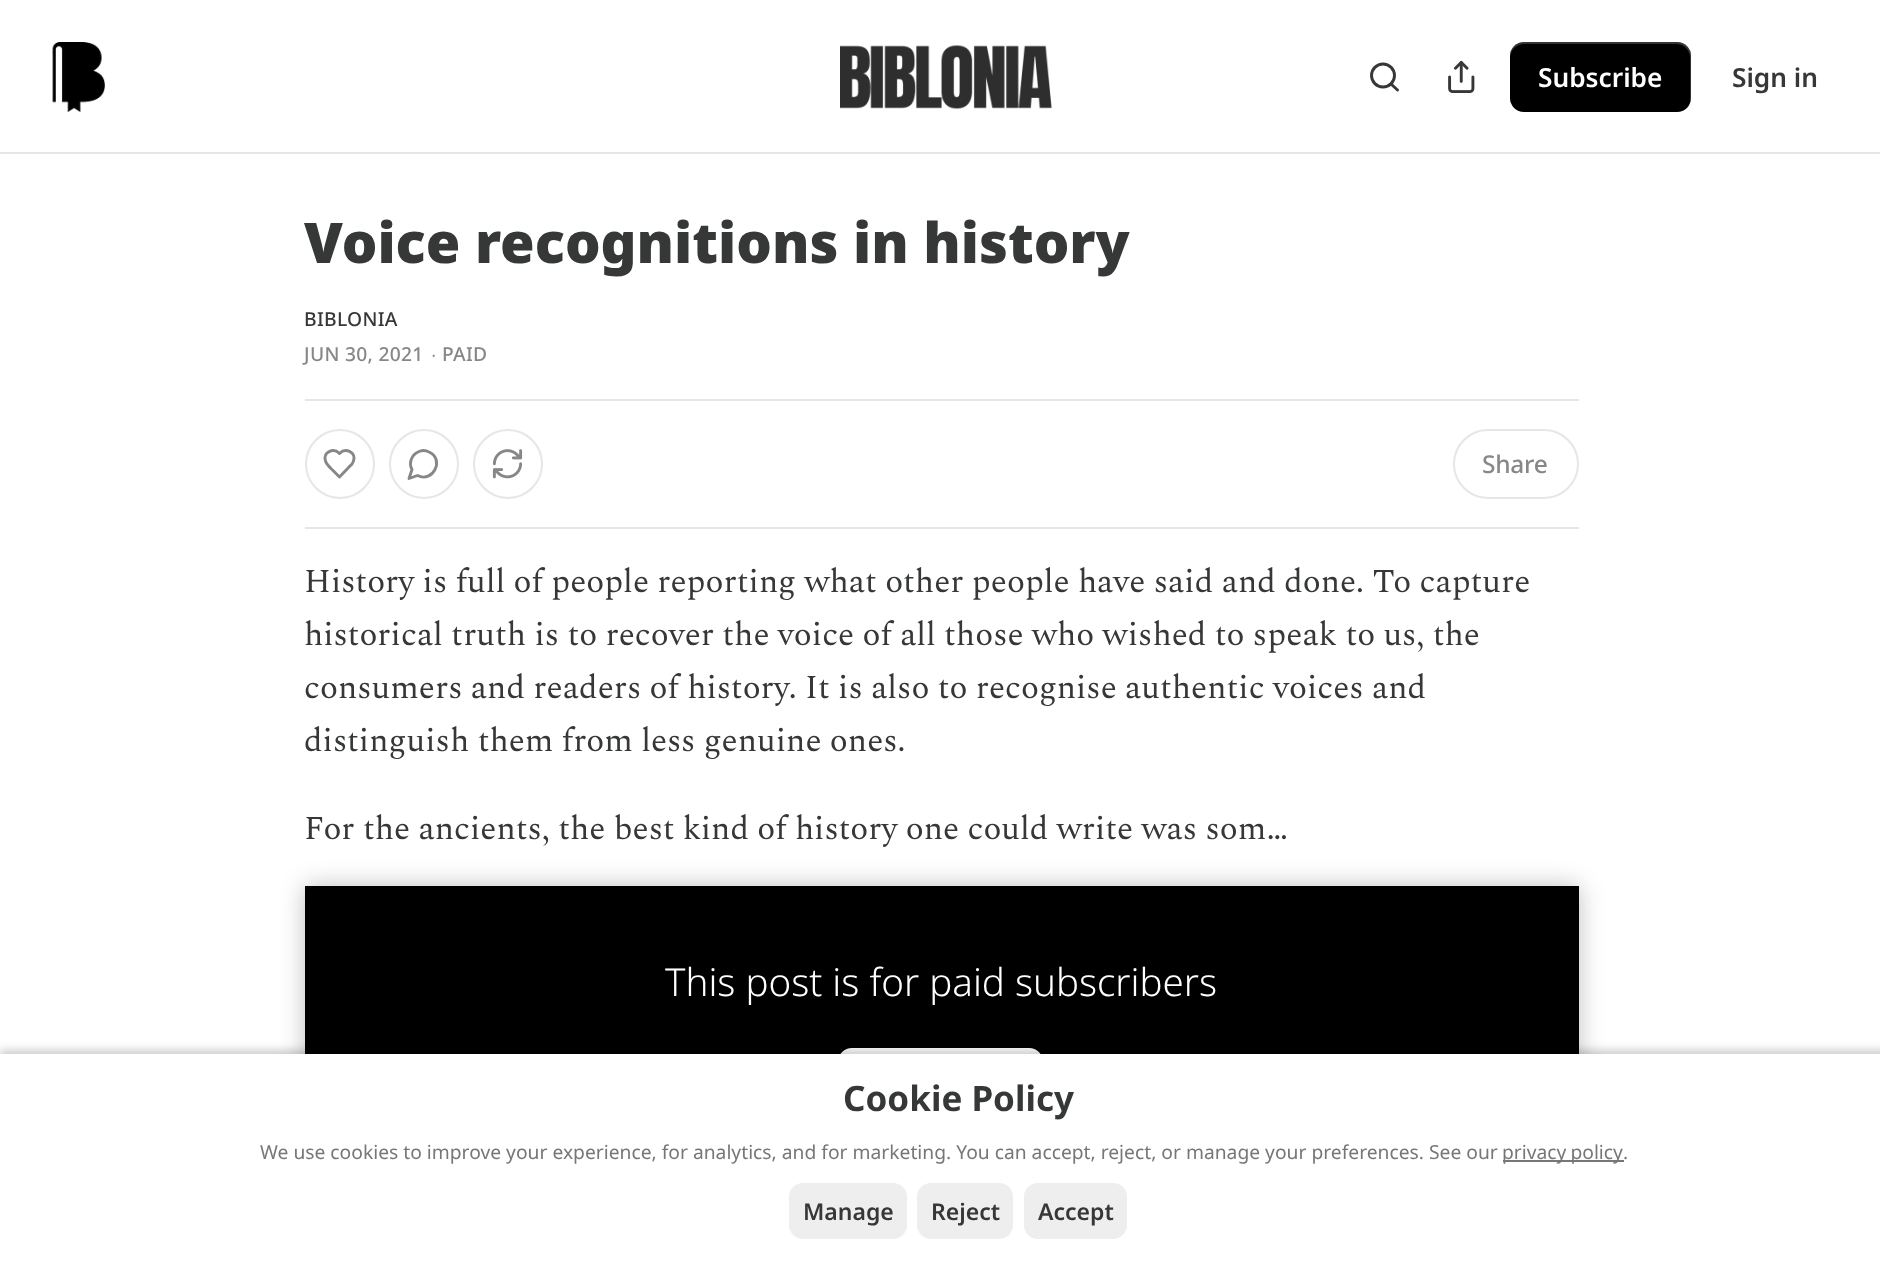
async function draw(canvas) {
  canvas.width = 1880
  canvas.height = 1263
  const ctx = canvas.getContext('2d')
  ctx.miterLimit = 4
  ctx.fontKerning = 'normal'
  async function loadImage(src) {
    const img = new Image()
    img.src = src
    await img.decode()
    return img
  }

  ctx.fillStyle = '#fff'
  ctx.fillRect(0, 0, 1880, 1263)
  ctx.fillStyle = '#e6e6e6'
  ctx.fillRect(0, 152, 1880, 2)
  ctx.drawImage(await loadImage('image0.png'), 52, 42, 53, 70)
  ctx.drawImage(await loadImage('image1.png'), 840, 45, 212, 64)
  ctx.beginPath()
  ctx.arc(1383, 75.5, 11.5, 0, 2 * Math.PI)
  ctx.strokeStyle = '#363737'
  ctx.lineWidth = 2.9
  ctx.stroke()
  ctx.beginPath()
  ctx.moveTo(1397.5, 90)
  ctx.lineTo(1391, 84)
  ctx.lineCap = 'round'
  ctx.lineJoin = 'round'
  ctx.stroke()
  ctx.drawImage(await loadImage('image2.png'), 1448, 61, 27, 32)
  ctx.fillStyle = '#000'
  ctx.beginPath()
  ctx.roundRect(1510, 42, 181, 70, 14)
  ctx.fill()
  ctx.fillStyle = '#0000001a'
  ctx.beginPath()
  ctx.moveTo(1510, 96)
  ctx.lineTo(1510, 98)
  ctx.bezierCurveTo(1510, 106, 1516, 112, 1524, 112)
  ctx.lineTo(1677, 112)
  ctx.bezierCurveTo(1685, 112, 1691, 106, 1691, 98)
  ctx.lineTo(1691, 56)
  ctx.bezierCurveTo(1691, 53, 1690, 50, 1689, 48)
  ctx.bezierCurveTo(1690, 50, 1690, 52, 1690, 54)
  ctx.lineTo(1690, 96)
  ctx.bezierCurveTo(1690, 104, 1684, 110, 1676, 110)
  ctx.lineTo(1524, 110)
  ctx.bezierCurveTo(1517, 110, 1510, 104, 1510, 96)
  ctx.closePath()
  ctx.fill()
  ctx.fillStyle = '#ffffff33'
  ctx.beginPath()
  ctx.moveTo(1524, 44)
  ctx.lineTo(1676, 44)
  ctx.bezierCurveTo(1684, 44, 1690, 50, 1690, 58)
  ctx.lineTo(1690, 100)
  ctx.bezierCurveTo(1690, 102, 1690, 104, 1689, 106)
  ctx.bezierCurveTo(1690, 104, 1691, 101, 1691, 98)
  ctx.lineTo(1691, 56)
  ctx.bezierCurveTo(1691, 48, 1685, 42, 1677, 42)
  ctx.lineTo(1524, 42)
  ctx.bezierCurveTo(1516, 42, 1510, 48, 1510, 56)
  ctx.lineTo(1510, 58)
  ctx.bezierCurveTo(1510, 50, 1517, 44, 1524, 44)
  ctx.closePath()
  ctx.fill()
  ctx.font = '600 26.25px Noto Sans'
  ctx.fillStyle = '#fff'
  ctx.fillText('Subscribe', 1538, 87)
  ctx.fillStyle = '#363737'
  ctx.fillText('Sign in', 1732, 87)
  ctx.font = '900 56px Noto Sans'
  ctx.fillText('Voice recognitions in history', 304, 263)
  ctx.letterSpacing = '0.3px'
  ctx.font = '500 19.25px Noto Sans'
  ctx.fillText('BIBLONIA', 304, 326)
  ctx.fillStyle = '#868787'
  ctx.fillText('JUN 30, 2021', 304, 361)
  ctx.font = '19.25px Liberation Sans'
  ctx.fillText('∙', 431, 361)
  ctx.font = '500 19.25px Noto Sans'
  ctx.fillText('PAID', 442, 361)
  ctx.fillStyle = '#e6e6e6'
  ctx.fillRect(305, 399, 1274, 2)
  ctx.fillRect(305, 527, 1274, 2)
  ctx.beginPath()
  ctx.arc(340, 464, 34, 0, 2 * Math.PI)
  ctx.strokeStyle = '#e6e6e6'
  ctx.lineWidth = 2
  ctx.stroke()
  ctx.beginPath()
  ctx.moveTo(349.5, 466.5)
  ctx.bezierCurveTo(351.5, 465, 353, 463, 353.5, 461)
  ctx.bezierCurveTo(356.5, 452, 345.5, 447.5, 339.5, 453.5)
  ctx.bezierCurveTo(333.5, 447.5, 322.5, 452, 325.5, 461)
  ctx.bezierCurveTo(326.5, 464.5, 330, 467.5, 332.5, 470)
  ctx.lineTo(339.5, 477)
  ctx.closePath()
  ctx.strokeStyle = '#868787'
  ctx.lineWidth = 2.9
  ctx.stroke()
  ctx.beginPath()
  ctx.arc(424, 464, 34, 0, 2 * Math.PI)
  ctx.strokeStyle = '#e6e6e6'
  ctx.lineWidth = 2
  ctx.stroke()
  ctx.beginPath()
  ctx.moveTo(417.5, 475.5)
  ctx.bezierCurveTo(433, 483.5, 445, 459, 429, 452)
  ctx.bezierCurveTo(425.5, 450, 421.5, 450, 418, 452)
  ctx.bezierCurveTo(411.5, 455, 408.5, 463, 412, 469.5)
  ctx.lineTo(409, 478.5)
  ctx.closePath()
  ctx.strokeStyle = '#868787'
  ctx.lineWidth = 2.9
  ctx.stroke()
  ctx.beginPath()
  ctx.arc(508, 464, 34, 0, 2 * Math.PI)
  ctx.strokeStyle = '#e6e6e6'
  ctx.lineWidth = 2
  ctx.stroke()
  ctx.drawImage(await loadImage('image3.png'), 492, 449, 31, 30)
  ctx.beginPath()
  ctx.roundRect(1454, 430, 124, 68, 34)
  ctx.lineJoin = 'miter'
  ctx.stroke()
  ctx.letterSpacing = '-0.25px'
  ctx.font = '500 24.5px Noto Sans'
  ctx.fillStyle = '#868787'
  ctx.fillText('Share', 1482, 473)
  ctx.letterSpacing = '0px'
  ctx.font = '33.25px Spectral'
  ctx.fillStyle = '#363737'
  ctx.fillText('History is full of people reporting what other people have said and done. To capture', 304, 592)
  ctx.fillText('historical truth is to recover the voice of all those who wished to speak to us, the', 304, 645)
  ctx.fillText('consumers and readers of history. It is also to recognise authentic voices and', 304, 698)
  ctx.fillText('distinguish them from less genuine ones.', 304, 751)
  ctx.fillText('For the ancients, the best kind of history one could write was som…', 304, 839)
  ctx.fillStyle = '#000'
  ctx.fillRect(305, 886, 1274, 168)
  ctx.fillStyle = '#fff'
  ctx.beginPath()
  ctx.roundRect(839, 1049, 203, 75, 13)
  ctx.fill()
  ctx.strokeStyle = '#fff'
  ctx.stroke()
  ctx.save()
  ctx.beginPath()
  ctx.moveTo(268, 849)
  ctx.lineTo(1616, 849)
  ctx.lineTo(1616, 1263)
  ctx.lineTo(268, 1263)
  ctx.closePath()
  ctx.moveTo(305, 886)
  ctx.lineTo(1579, 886)
  ctx.lineTo(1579, 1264)
  ctx.lineTo(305, 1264)
  ctx.closePath()
  ctx.clip('evenodd')
  ctx.fillStyle = '#00000040'
  ctx.filter = 'blur(12px)'
  ctx.beginPath()
  ctx.rect(305, 886, 1274, 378)
  ctx.fill()
  ctx.filter = 'none'
  ctx.restore()
  ctx.font = '300 38.5px Noto Sans'
  ctx.fillText('This post is for paid subscribers', 665, 996)
  ctx.fillStyle = '#00000033'
  ctx.filter = 'blur(4.5px)'
  ctx.beginPath()
  ctx.rect(0, 1050, 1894, 210)
  ctx.fill()
  ctx.filter = 'none'
  ctx.fillStyle = '#fff'
  ctx.fillRect(0, 1054, 1880, 209)
  ctx.font = 'bold 35px Noto Sans'
  ctx.fillStyle = '#363737'
  ctx.fillText('Cookie Policy', 843, 1111)
  ctx.font = '19.25px Noto Sans'
  ctx.fillStyle = '#777'
  ctx.fillText('We use cookies to improve your experience, for analytics, and for marketing. You can accept, reject, or manage your preferences. See our', 260, 1159)
  ctx.fillRect(1503, 1160, 121, 2)
  ctx.wordSpacing = '-1px'
  ctx.fillText('privacy policy', 1502, 1159)
  ctx.wordSpacing = '0px'
  ctx.fillText('.', 1623, 1159)
  ctx.fillStyle = '#eee'
  ctx.beginPath()
  ctx.roundRect(789, 1183, 118, 56, 14)
  ctx.fill()
  ctx.font = '600 23px Noto Sans'
  ctx.fillStyle = '#363737'
  ctx.fillText('Manage', 803, 1220)
  ctx.fillStyle = '#eee'
  ctx.beginPath()
  ctx.roundRect(917, 1183, 96, 56, 14)
  ctx.fill()
  ctx.fillStyle = '#363737'
  ctx.fillText('Reject', 931, 1220)
  ctx.fillStyle = '#eee'
  ctx.beginPath()
  ctx.roundRect(1024, 1183, 103, 56, 14)
  ctx.fill()
  ctx.fillStyle = '#363737'
  ctx.fillText('Accept', 1038, 1220)
}

draw(document.querySelector('canvas'))
